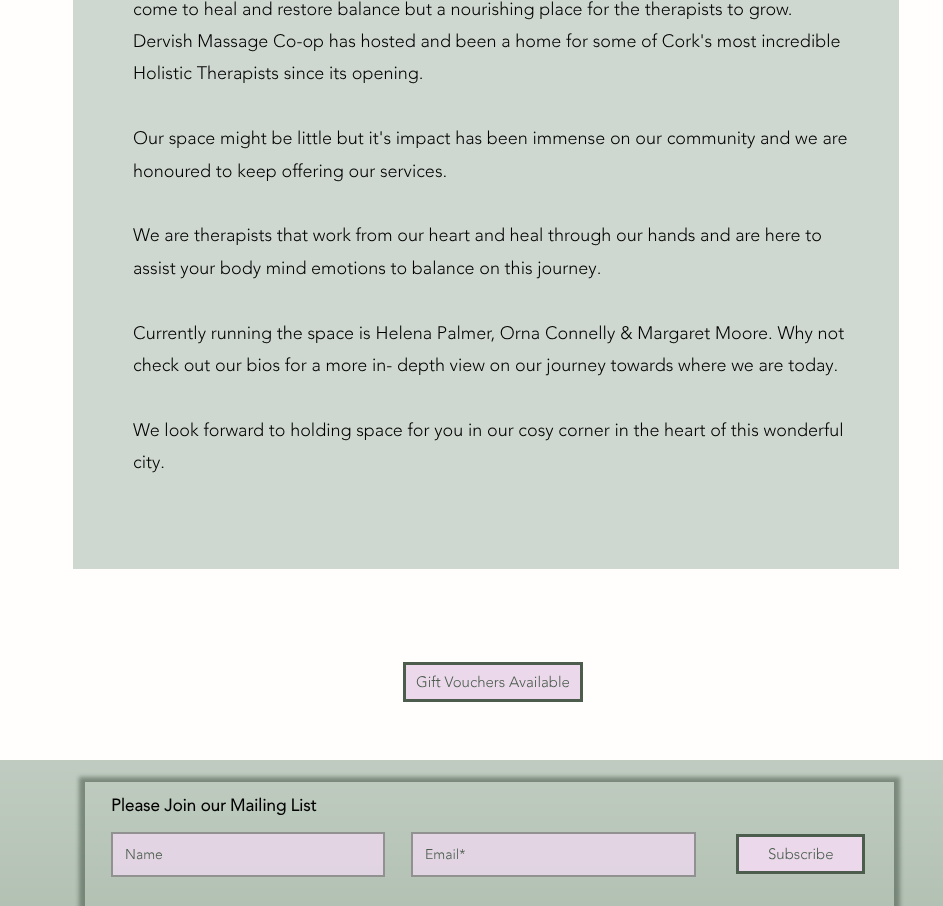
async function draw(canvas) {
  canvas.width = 943
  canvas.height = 906
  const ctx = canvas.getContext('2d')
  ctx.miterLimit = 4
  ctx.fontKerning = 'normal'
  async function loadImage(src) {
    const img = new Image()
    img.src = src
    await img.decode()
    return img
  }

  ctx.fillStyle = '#fffefd'
  ctx.fillRect(0, 0, 943, 906)
  ctx.fillStyle = '#cfd8d0'
  ctx.fillRect(73, 0, 826, 569)
  ctx.font = '300 18px "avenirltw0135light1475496"'
  ctx.fillStyle = '#000'
  ctx.fillText('come to heal and restore balance but a nourishing place for the therapists to grow.', 133, 15)
  ctx.fillText('Dervish Massage Co-op has hosted and been a home for some of Cork\'s most incredible', 133, 47)
  ctx.fillText('Holistic Therapists since its opening.', 133, 79)
  ctx.fillText('Our space might be little but it\'s impact has been immense on our community and we are', 133, 144)
  ctx.fillText('honoured to keep offering our services.', 133, 177)
  ctx.fillText('We are therapists that work from our heart and heal through our hands and are here to', 133, 241)
  ctx.fillText('assist your body mind emotions to balance on this journey.', 133, 274)
  ctx.fillText('Currently running the space is Helena Palmer, Orna Connelly & Margaret Moore. Why not', 133, 339)
  ctx.fillText('check out our bios for a more in- depth view on our journey towards where we are today.', 133, 371)
  ctx.fillText('We look forward to holding space for you in our cosy corner in the heart of this wonderful', 133, 436)
  ctx.fillText('city.', 133, 468)
  ctx.fillStyle = '#ebd8eb'
  ctx.beginPath()
  ctx.rect(404.5, 663.5, 177, 37)
  ctx.fill()
  ctx.strokeStyle = '#4c5d4e'
  ctx.lineWidth = 3
  ctx.stroke()
  ctx.font = '300 15px "avenirltw0135light1475496"'
  ctx.fillStyle = '#4c5d4e'
  ctx.fillText('Gift Vouchers Available', 416, 687)
  ctx.fillStyle = '#aabaab'
  ctx.fillRect(0, 760, 943, 146)
  ctx.drawImage(await loadImage('image0.png'), 0, 760, 943, 146)
  ctx.save()
  ctx.beginPath()
  ctx.moveTo(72, 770)
  ctx.lineTo(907, 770)
  ctx.lineTo(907, 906)
  ctx.lineTo(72, 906)
  ctx.closePath()
  ctx.moveTo(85, 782)
  ctx.lineTo(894, 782)
  ctx.lineTo(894, 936)
  ctx.lineTo(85, 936)
  ctx.closePath()
  ctx.clip('evenodd')
  ctx.fillStyle = '#4c5d4e99'
  ctx.filter = 'blur(2px)'
  ctx.beginPath()
  ctx.rect(79, 777, 821, 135)
  ctx.fill()
  ctx.filter = 'none'
  ctx.restore()
  ctx.font = 'bold 17px "avenirltw0135light1475496"'
  ctx.fillStyle = '#000'
  ctx.fillText('Please Join our Mailing List', 111, 811)
  ctx.fillStyle = '#ebd8ebcf'
  ctx.beginPath()
  ctx.rect(112, 833, 272, 43)
  ctx.fill()
  ctx.strokeStyle = '#919191'
  ctx.lineWidth = 2
  ctx.stroke()
  ctx.font = '300 14px "avenirltw0135light1475496"'
  ctx.fillStyle = '#4c5d4e'
  ctx.fillText('Name', 125, 859)
  ctx.fillStyle = '#ebd8ebcf'
  ctx.beginPath()
  ctx.rect(412, 833, 283, 43)
  ctx.fill()
  ctx.stroke()
  ctx.fillStyle = '#4c5d4e'
  ctx.fillText('Email*', 425, 859)
  ctx.fillStyle = '#ebd8eb'
  ctx.beginPath()
  ctx.rect(737.5, 835.5, 126, 37)
  ctx.fill()
  ctx.strokeStyle = '#4c5d4e'
  ctx.lineWidth = 3
  ctx.stroke()
  ctx.font = '300 15px "avenirltw0135light1475496"'
  ctx.fillStyle = '#4c5d4e'
  ctx.fillText('Subscribe', 768, 859)
}

draw(document.querySelector('canvas'))
